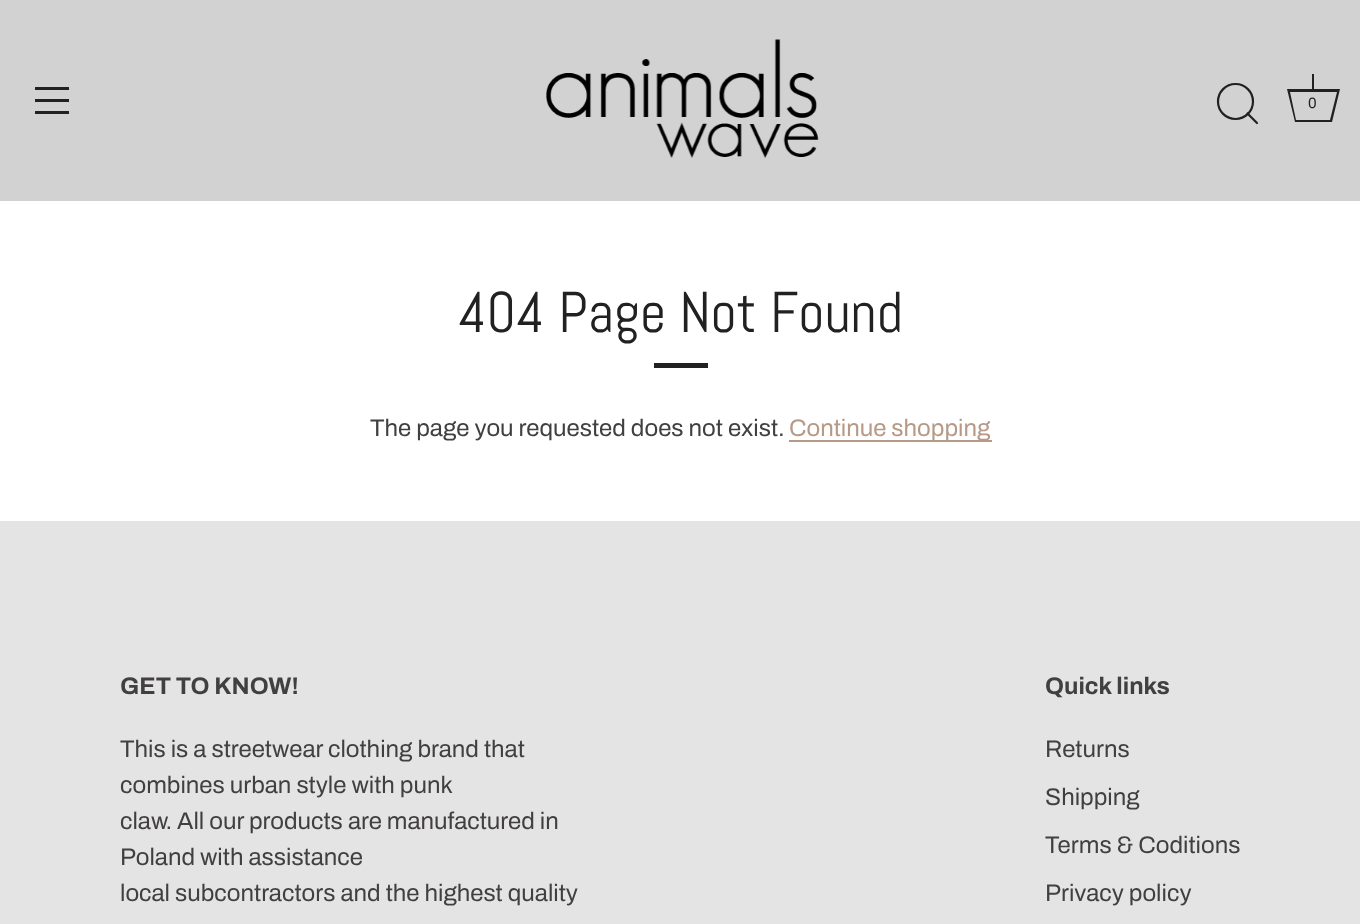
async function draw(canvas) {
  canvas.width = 1360
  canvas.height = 924
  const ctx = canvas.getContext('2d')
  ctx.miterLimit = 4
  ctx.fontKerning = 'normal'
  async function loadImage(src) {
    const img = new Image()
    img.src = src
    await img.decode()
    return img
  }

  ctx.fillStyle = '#fff'
  ctx.fillRect(0, 0, 1360, 924)
  ctx.fillStyle = '#d2d2d2'
  ctx.fillRect(0, 0, 1360, 201)
  ctx.fillStyle = '#212121'
  ctx.fillRect(35, 87, 34, 3)
  ctx.fillRect(35, 99, 34, 3)
  ctx.fillRect(35, 111, 34, 3)
  ctx.drawImage(await loadImage('image0.png'), 546, 39, 273, 119)
  ctx.beginPath()
  ctx.arc(1235.5, 101.5, 17.5, 0, 2 * Math.PI)
  ctx.strokeStyle = '#212121'
  ctx.lineWidth = 2.2
  ctx.stroke()
  ctx.beginPath()
  ctx.moveTo(1257, 123)
  ctx.lineTo(1247.5, 113.5)
  ctx.lineCap = 'round'
  ctx.lineJoin = 'round'
  ctx.stroke()
  ctx.fillRect(1312, 74, 2, 15)
  ctx.beginPath()
  ctx.moveTo(1337, 92)
  ctx.lineTo(1330, 120)
  ctx.lineTo(1296, 120)
  ctx.lineTo(1290, 92)
  ctx.lineTo(1337, 92)
  ctx.moveTo(1340, 89)
  ctx.lineTo(1287, 89)
  ctx.lineTo(1295, 122)
  ctx.lineTo(1332, 122)
  ctx.closePath()
  ctx.fill()
  ctx.font = '15px Archivo'
  ctx.fillText('0', 1308, 108)
  ctx.font = '57.5px Abel'
  ctx.fillText('404 Page Not Found', 458, 332)
  ctx.fillRect(654, 363, 54, 5)
  ctx.font = '24px Archivo'
  ctx.fillStyle = '#423f3f'
  ctx.fillText('The page you requested does not exist.', 370, 436)
  ctx.fillStyle = '#b79987'
  ctx.fillRect(789, 440, 203, 2)
  ctx.fillText('Continue shopping', 789, 436)
  ctx.fillStyle = '#e4e4e4'
  ctx.fillRect(0, 521, 1360, 403)
  ctx.font = 'bold 24px Archivo'
  ctx.fillStyle = '#423f3f'
  ctx.fillText('GET TO KNOW!', 120, 694)
  ctx.font = '24px Archivo'
  ctx.fillText('This is a streetwear clothing brand that', 120, 757)
  ctx.fillText('combines urban style with punk', 120, 793)
  ctx.fillText('claw. All our products are manufactured in', 120, 829)
  ctx.fillText('Poland with assistance', 120, 865)
  ctx.fillText('local subcontractors and the highest quality', 120, 901)
  ctx.font = 'bold 24px Archivo'
  ctx.fillText('Quick links', 1045, 694)
  ctx.font = '24px Archivo'
  ctx.fillText('Returns', 1045, 757)
  ctx.fillText('Shipping', 1045, 805)
  ctx.fillText('Terms & Coditions', 1045, 853)
  ctx.fillText('Privacy policy', 1045, 901)
}

draw(document.querySelector('canvas'))
